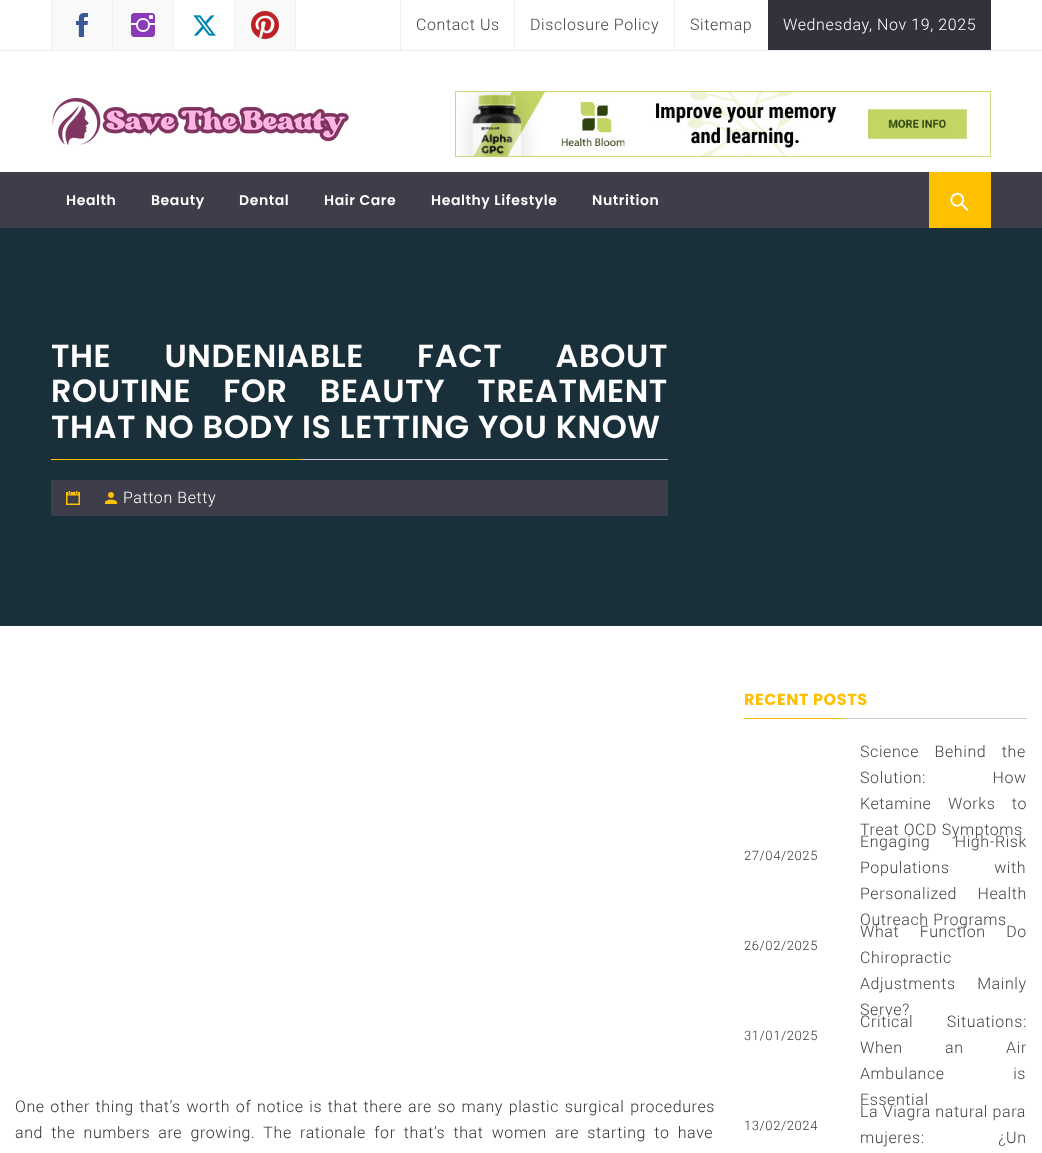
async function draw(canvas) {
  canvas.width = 1042
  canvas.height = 1153
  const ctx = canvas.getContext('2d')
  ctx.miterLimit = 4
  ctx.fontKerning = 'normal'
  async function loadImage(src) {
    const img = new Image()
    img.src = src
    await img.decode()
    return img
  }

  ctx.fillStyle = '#fff'
  ctx.fillRect(0, 0, 1042, 1153)
  ctx.fillStyle = '#eee'
  ctx.fillRect(0, 50, 1042, 1)
  ctx.fillRect(112, 0, 1, 50)
  ctx.fillRect(51, 0, 1, 50)
  ctx.fillStyle = '#f9f9f9'
  ctx.fillRect(52, 0, 60, 50)
  ctx.drawImage(await loadImage('image0.png'), 76, 13, 12, 24)
  ctx.fillStyle = '#eee'
  ctx.fillRect(173, 0, 1, 50)
  ctx.fillStyle = '#f9f9f9'
  ctx.fillRect(113, 0, 60, 50)
  ctx.drawImage(await loadImage('image1.png'), 131, 13, 24, 24)
  ctx.fillStyle = '#eee'
  ctx.fillRect(234, 0, 1, 50)
  ctx.drawImage(await loadImage('image2.png'), 193, 15, 23, 21)
  ctx.fillRect(295, 0, 1, 50)
  ctx.fillStyle = '#f9f9f9'
  ctx.fillRect(235, 0, 60, 50)
  ctx.drawImage(await loadImage('image3.png'), 251, 11, 28, 28)
  ctx.fillStyle = '#eee'
  ctx.fillRect(514, 0, 1, 50)
  ctx.fillRect(400, 0, 1, 50)
  ctx.letterSpacing = '0.6px'
  ctx.font = '300 16px Roboto'
  ctx.fillStyle = '#434343'
  ctx.fillText('Contact Us', 416, 30)
  ctx.fillStyle = '#eee'
  ctx.fillRect(674, 0, 1, 50)
  ctx.fillStyle = '#434343'
  ctx.fillText('Disclosure Policy', 530, 30)
  ctx.fillText('Sitemap', 690, 30)
  ctx.fillStyle = '#32323c'
  ctx.fillRect(768, 0, 223, 50)
  ctx.fillStyle = '#fff'
  ctx.fillText('Wednesday, Nov 19, 2025', 783, 30)
  ctx.drawImage(await loadImage('image4.png'), 52, 97, 297, 48)
  ctx.drawImage(await loadImage('image5.png'), 455, 91, 536, 66)
  ctx.fillStyle = '#182e38'
  ctx.fillRect(0, 228, 1042, 1)
  ctx.fillStyle = '#3e3e4a'
  ctx.fillRect(0, 172, 1042, 56)
  ctx.font = '600 14px Poppins'
  ctx.fillStyle = '#fff'
  ctx.fillText('Health', 66, 205)
  ctx.fillText('Beauty', 151, 205)
  ctx.fillText('Dental', 239, 205)
  ctx.fillText('Hair Care', 324, 205)
  ctx.fillText('Healthy Lifestyle', 431, 205)
  ctx.fillText('Nutrition', 592, 205)
  ctx.fillStyle = '#ffc000'
  ctx.fillRect(929, 172, 62, 56)
  ctx.fillStyle = '#fff'
  ctx.beginPath()
  ctx.moveTo(966.5, 210.5)
  ctx.lineTo(952, 196)
  ctx.bezierCurveTo(951.5, 195.5, 952.5, 194.5, 953.5, 194.5)
  ctx.lineTo(965.5, 206.5)
  ctx.bezierCurveTo(965.5, 207, 969, 209, 968, 210.5)
  ctx.bezierCurveTo(967.5, 211, 967, 211, 966.5, 210.5)
  ctx.closePath()
  ctx.fill()
  ctx.fillStyle = '#ffc000'
  ctx.beginPath()
  ctx.moveTo(952, 205)
  ctx.bezierCurveTo(945.5, 198.5, 955.5, 188.5, 962, 195)
  ctx.bezierCurveTo(968.5, 201.5, 958.5, 211.5, 952, 205)
  ctx.closePath()
  ctx.fill()
  ctx.beginPath()
  ctx.moveTo(953, 204)
  ctx.bezierCurveTo(947.5, 198.5, 956, 190, 961.5, 195.5)
  ctx.bezierCurveTo(967, 201, 958.5, 209.5, 953, 204)
  ctx.closePath()
  ctx.strokeStyle = '#fff'
  ctx.lineWidth = 2
  ctx.stroke()
  ctx.fillStyle = '#19303b'
  ctx.fillRect(0, 229, 1042, 397)
  ctx.fillStyle = '#ccc'
  ctx.fillRect(301, 459, 367, 1)
  ctx.wordSpacing = '45px'
  ctx.font = '600 32px Poppins'
  ctx.fillStyle = '#fff'
  ctx.fillText('THE UNDENIABLE FACT ABOUT', 51, 367)
  ctx.wordSpacing = '24px'
  ctx.fillText('ROUTINE FOR BEAUTY TREATMENT', 51, 402)
  ctx.wordSpacing = '0px'
  ctx.fillText('THAT NO BODY IS LETTING YOU KNOW', 51, 438)
  ctx.fillStyle = '#ffc000'
  ctx.fillRect(51, 459, 250, 1)
  ctx.fillStyle = '#3e3e4a'
  ctx.fillRect(51, 480, 617, 36)
  ctx.drawImage(await loadImage('image6.png'), 66, 491, 14, 14)
  ctx.drawImage(await loadImage('image7.png'), 105, 492, 12, 12)
  ctx.font = '300 16px Roboto'
  ctx.fillStyle = '#fff'
  ctx.fillText('Patton Betty', 123, 503)
  ctx.wordSpacing = '1.2px'
  ctx.fillStyle = '#333'
  ctx.fillText('One other thing that’s worth of notice is that there are so many plastic surgical procedures', 15, 1112)
  ctx.wordSpacing = '3.75px'
  ctx.fillText('and the numbers are growing. The rationale for that’s that women are starting to have', 15, 1138)
  ctx.fillStyle = '#ccc'
  ctx.fillRect(844, 718, 183, 1)
  ctx.wordSpacing = '0px'
  ctx.font = 'bold 16px Poppins'
  ctx.fillStyle = '#ffc000'
  ctx.fillText('RECENT POSTS', 744, 705)
  ctx.fillRect(744, 718, 100, 1)
  ctx.wordSpacing = '11px'
  ctx.font = '300 16px Roboto'
  ctx.fillStyle = '#434343'
  ctx.fillText('Science Behind the', 860, 757)
  ctx.wordSpacing = '62px'
  ctx.fillText('Solution: How', 860, 783)
  ctx.wordSpacing = '12px'
  ctx.fillText('Ketamine Works to', 860, 809)
  ctx.wordSpacing = '0px'
  ctx.fillText('Treat OCD Symptoms', 860, 835)
  ctx.font = '300 13px Roboto'
  ctx.fillStyle = '#333'
  ctx.fillText('27/04/2025', 744, 860)
  ctx.wordSpacing = '20px'
  ctx.font = '300 16px Roboto'
  ctx.fillStyle = '#434343'
  ctx.fillText('Engaging High-Risk', 860, 847)
  ctx.wordSpacing = '40px'
  ctx.fillText('Populations with', 860, 873)
  ctx.wordSpacing = '16px'
  ctx.fillText('Personalized Health', 860, 899)
  ctx.wordSpacing = '0px'
  ctx.fillText('Outreach Programs', 860, 925)
  ctx.font = '300 13px Roboto'
  ctx.fillStyle = '#333'
  ctx.fillText('26/02/2025', 744, 950)
  ctx.wordSpacing = '16px'
  ctx.font = '300 16px Roboto'
  ctx.fillStyle = '#434343'
  ctx.fillText('What Function Do', 860, 937)
  ctx.wordSpacing = '0px'
  ctx.fillText('Chiropractic', 860, 963)
  ctx.wordSpacing = '17px'
  ctx.fillText('Adjustments Mainly', 860, 989)
  ctx.wordSpacing = '0px'
  ctx.fillText('Serve?', 860, 1015)
  ctx.font = '300 13px Roboto'
  ctx.fillStyle = '#333'
  ctx.fillText('31/01/2025', 744, 1040)
  ctx.wordSpacing = '29px'
  ctx.font = '300 16px Roboto'
  ctx.fillStyle = '#434343'
  ctx.fillText('Critical Situations:', 860, 1027)
  ctx.wordSpacing = '38px'
  ctx.fillText('When an Air', 860, 1053)
  ctx.wordSpacing = '64px'
  ctx.fillText('Ambulance is', 860, 1079)
  ctx.wordSpacing = '0px'
  ctx.fillText('Essential', 860, 1105)
  ctx.font = '300 13px Roboto'
  ctx.fillStyle = '#333'
  ctx.fillText('13/02/2024', 744, 1130)
  ctx.font = '300 16px Roboto'
  ctx.fillStyle = '#434343'
  ctx.fillText('La Viagra natural para', 860, 1117)
  ctx.wordSpacing = '69px'
  ctx.fillText('mujeres: ¿Un', 860, 1143)
}

draw(document.querySelector('canvas'))
